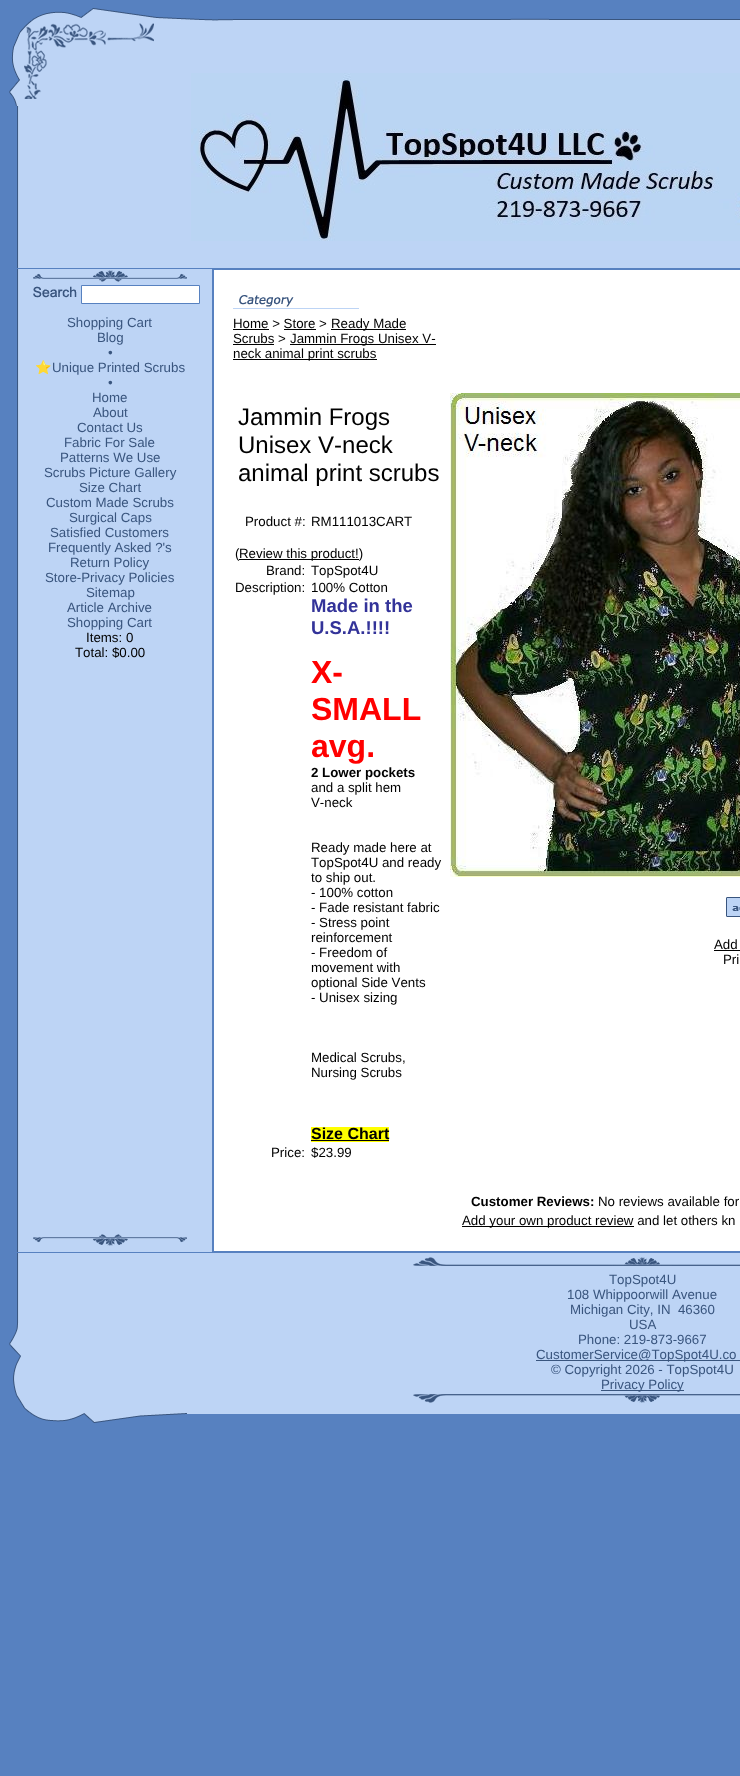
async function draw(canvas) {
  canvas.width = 740
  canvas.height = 1776
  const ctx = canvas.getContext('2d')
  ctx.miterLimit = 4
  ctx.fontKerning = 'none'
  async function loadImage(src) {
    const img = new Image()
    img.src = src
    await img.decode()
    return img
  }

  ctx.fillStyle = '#5781c0'
  ctx.fillRect(0, 0, 740, 1776)
  ctx.drawImage(await loadImage('image0.png'), 12, 8, 292, 41)
  ctx.drawImage(await loadImage('image1.png'), 304, 18, 436, 31)
  ctx.drawImage(await loadImage('image2.png'), 9, 49, 42, 57)
  ctx.drawImage(await loadImage('image3.png'), 17, 106, 34, 162)
  ctx.fillStyle = '#bdd4f5'
  ctx.fillRect(51, 49, 689, 219)
  ctx.drawImage(await loadImage('image4.png'), 191, 73, 549, 168)
  ctx.fillRect(19, 269, 193, 983)
  ctx.drawImage(await loadImage('image5.png'), 8, 269, 11, 983)
  ctx.drawImage(await loadImage('image6.png'), 33, 270, 154, 12)
  ctx.drawImage(await loadImage('image7.png'), 33, 286, 44, 12)
  ctx.fillStyle = '#fff'
  ctx.beginPath()
  ctx.rect(81.5, 285.5, 118, 18)
  ctx.fill()
  ctx.strokeStyle = '#5781c0'
  ctx.stroke()
  ctx.font = '13.3px Liberation Sans'
  ctx.fillStyle = '#39557e'
  ctx.fillText('Shopping Cart', 67, 327)
  ctx.fillText('Blog', 97, 342)
  ctx.fillText('•', 108, 357)
  ctx.font = '13.3px Noto Color Emoji'
  ctx.fillText('⭐', 35, 372)
  ctx.font = '13.3px Liberation Sans'
  ctx.fillText('Unique Printed Scrubs', 52, 372)
  ctx.fillText('•', 108, 387)
  ctx.fillText('Home', 92, 402)
  ctx.fillText('About', 93, 417)
  ctx.fillText('Contact Us', 77, 432)
  ctx.fillText('Fabric For Sale', 64, 447)
  ctx.fillText('Patterns We Use', 60, 462)
  ctx.fillText('Scrubs Picture Gallery', 44, 477)
  ctx.fillText('Size Chart', 79, 492)
  ctx.fillText('Custom Made Scrubs', 46, 507)
  ctx.fillText('Surgical Caps', 69, 522)
  ctx.fillText('Satisfied Customers', 50, 537)
  ctx.fillText('Frequently Asked ?\'s', 48, 552)
  ctx.fillText('Return Policy', 70, 567)
  ctx.fillText('Store-Privacy Policies', 45, 582)
  ctx.fillText('Sitemap', 86, 597)
  ctx.fillText('Article Archive', 67, 612)
  ctx.fillText('Shopping Cart', 67, 627)
  ctx.fillStyle = '#000'
  ctx.fillText('Items: 0', 86, 642)
  ctx.fillText('Total: $0.00', 75, 657)
  ctx.drawImage(await loadImage('image8.png'), 33, 1234, 154, 12)
  ctx.fillStyle = '#fff'
  ctx.fillRect(214, 270, 526, 981)
  ctx.drawImage(await loadImage('image9.png'), 233, 295, 126, 14)
  ctx.fillStyle = '#000'
  ctx.fillText('Home > Store >', 233, 328)
  ctx.fillRect(233, 329, 36, 1)
  ctx.fillRect(331, 329, 75, 1)
  ctx.fillText('Ready Made', 331, 328)
  ctx.fillRect(284, 329, 32, 1)
  ctx.fillText('Scrubs >', 233, 343)
  ctx.fillRect(233, 344, 41, 1)
  ctx.fillRect(290, 344, 146, 1)
  ctx.fillText('Jammin Frogs Unisex V-', 290, 343)
  ctx.fillRect(233, 359, 144, 1)
  ctx.fillText('neck animal print scrubs', 233, 358)
  ctx.font = '24px Liberation Sans'
  ctx.fillText('Jammin Frogs', 238, 425)
  ctx.fillText('Unisex V-neck', 238, 453)
  ctx.fillText('animal print scrubs', 238, 481)
  ctx.font = '13.3px Liberation Sans'
  ctx.fillText('Product #:', 245, 526)
  ctx.fillText('RM111013CART', 311, 526)
  ctx.fillText('(', 235, 558)
  ctx.fillRect(239, 559, 120, 1)
  ctx.fillText('Review this product!)', 239, 558)
  ctx.fillText('Brand:', 266, 575)
  ctx.fillText('TopSpot4U', 311, 575)
  ctx.fillText('Description:', 235, 592)
  ctx.fillText('100% Cotton', 311, 592)
  ctx.font = 'bold 18.5px Liberation Sans'
  ctx.fillStyle = '#339'
  ctx.fillText('Made in the', 311, 612)
  ctx.fillText('U.S.A.!!!!', 311, 634)
  ctx.font = 'bold 32px Liberation Sans'
  ctx.fillStyle = '#f00'
  ctx.fillText('X-', 311, 683)
  ctx.fillText('SMALL', 311, 720)
  ctx.fillText('avg.', 311, 757)
  ctx.font = 'bold 13.3px Liberation Sans'
  ctx.fillStyle = '#000'
  ctx.fillText('2 Lower pockets', 311, 777)
  ctx.font = '13.3px Liberation Sans'
  ctx.fillText('and a split hem', 311, 792)
  ctx.fillText('V-neck', 311, 807)
  ctx.fillText('Ready made here at', 311, 852)
  ctx.fillText('TopSpot4U and ready', 311, 867)
  ctx.fillText('to ship out.', 311, 882)
  ctx.fillText('- 100% cotton', 311, 897)
  ctx.fillText('- Fade resistant fabric', 311, 912)
  ctx.fillText('- Stress point', 311, 927)
  ctx.fillText('reinforcement', 311, 942)
  ctx.fillText('- Freedom of', 311, 957)
  ctx.fillText('movement with', 311, 972)
  ctx.fillText('optional Side Vents', 311, 987)
  ctx.fillText('- Unisex sizing', 311, 1002)
  ctx.fillText('Medical Scrubs,', 311, 1062)
  ctx.fillText('Nursing Scrubs', 311, 1077)
  ctx.fillStyle = '#ff0'
  ctx.fillRect(311, 1127, 78, 15)
  ctx.font = 'bold 16px Liberation Sans'
  ctx.fillStyle = '#000'
  ctx.fillText('Size Chart', 311, 1139)
  ctx.fillRect(311, 1140, 78, 1)
  ctx.font = '13.3px Liberation Sans'
  ctx.fillText('Price:', 271, 1157)
  ctx.fillText('$23.99', 311, 1157)
  ctx.drawImage(await loadImage('image10.png'), 450, 393, 290, 484)
  ctx.drawImage(await loadImage('image11.png'), 726, 897, 14, 20)
  ctx.fillText('Add', 714, 949)
  ctx.fillRect(714, 950, 26, 1)
  ctx.fillText('Pri', 723, 964)
  ctx.font = 'bold 13.3px Liberation Sans'
  ctx.fillText('Customer Reviews:', 471, 1206)
  ctx.font = '13.3px Liberation Sans'
  ctx.fillText('No reviews available for', 598, 1206)
  ctx.fillRect(462, 1226, 172, 1)
  ctx.fillText('Add your own product review and let others kn', 462, 1225)
  ctx.drawImage(await loadImage('image12.png'), 17, 1253, 170, 70)
  ctx.drawImage(await loadImage('image13.png'), 9, 1323, 14, 83)
  ctx.drawImage(await loadImage('image14.png'), 23, 1323, 164, 88)
  ctx.fillStyle = '#bdd4f5'
  ctx.fillRect(187, 1253, 553, 161)
  ctx.drawImage(await loadImage('image15.png'), 413, 1257, 327, 9)
  ctx.fillStyle = '#39557e'
  ctx.fillText('TopSpot4U', 609, 1284)
  ctx.fillText('108 Whippoorwill Avenue', 567, 1299)
  ctx.fillText('Michigan City, IN  46360', 570, 1314)
  ctx.fillText('USA', 629, 1329)
  ctx.fillText('Phone: 219-873-9667', 578, 1344)
  ctx.fillRect(536, 1360, 204, 1)
  ctx.fillText('CustomerService@TopSpot4U.co', 536, 1359)
  ctx.fillText('© Copyright 2026 - TopSpot4U', 551, 1374)
  ctx.fillRect(601, 1390, 83, 1)
  ctx.fillText('Privacy Policy', 601, 1389)
  ctx.drawImage(await loadImage('image16.png'), 413, 1394, 327, 9)
  ctx.drawImage(await loadImage('image17.png'), 27, 1411, 160, 12)
}

draw(document.querySelector('canvas'))
